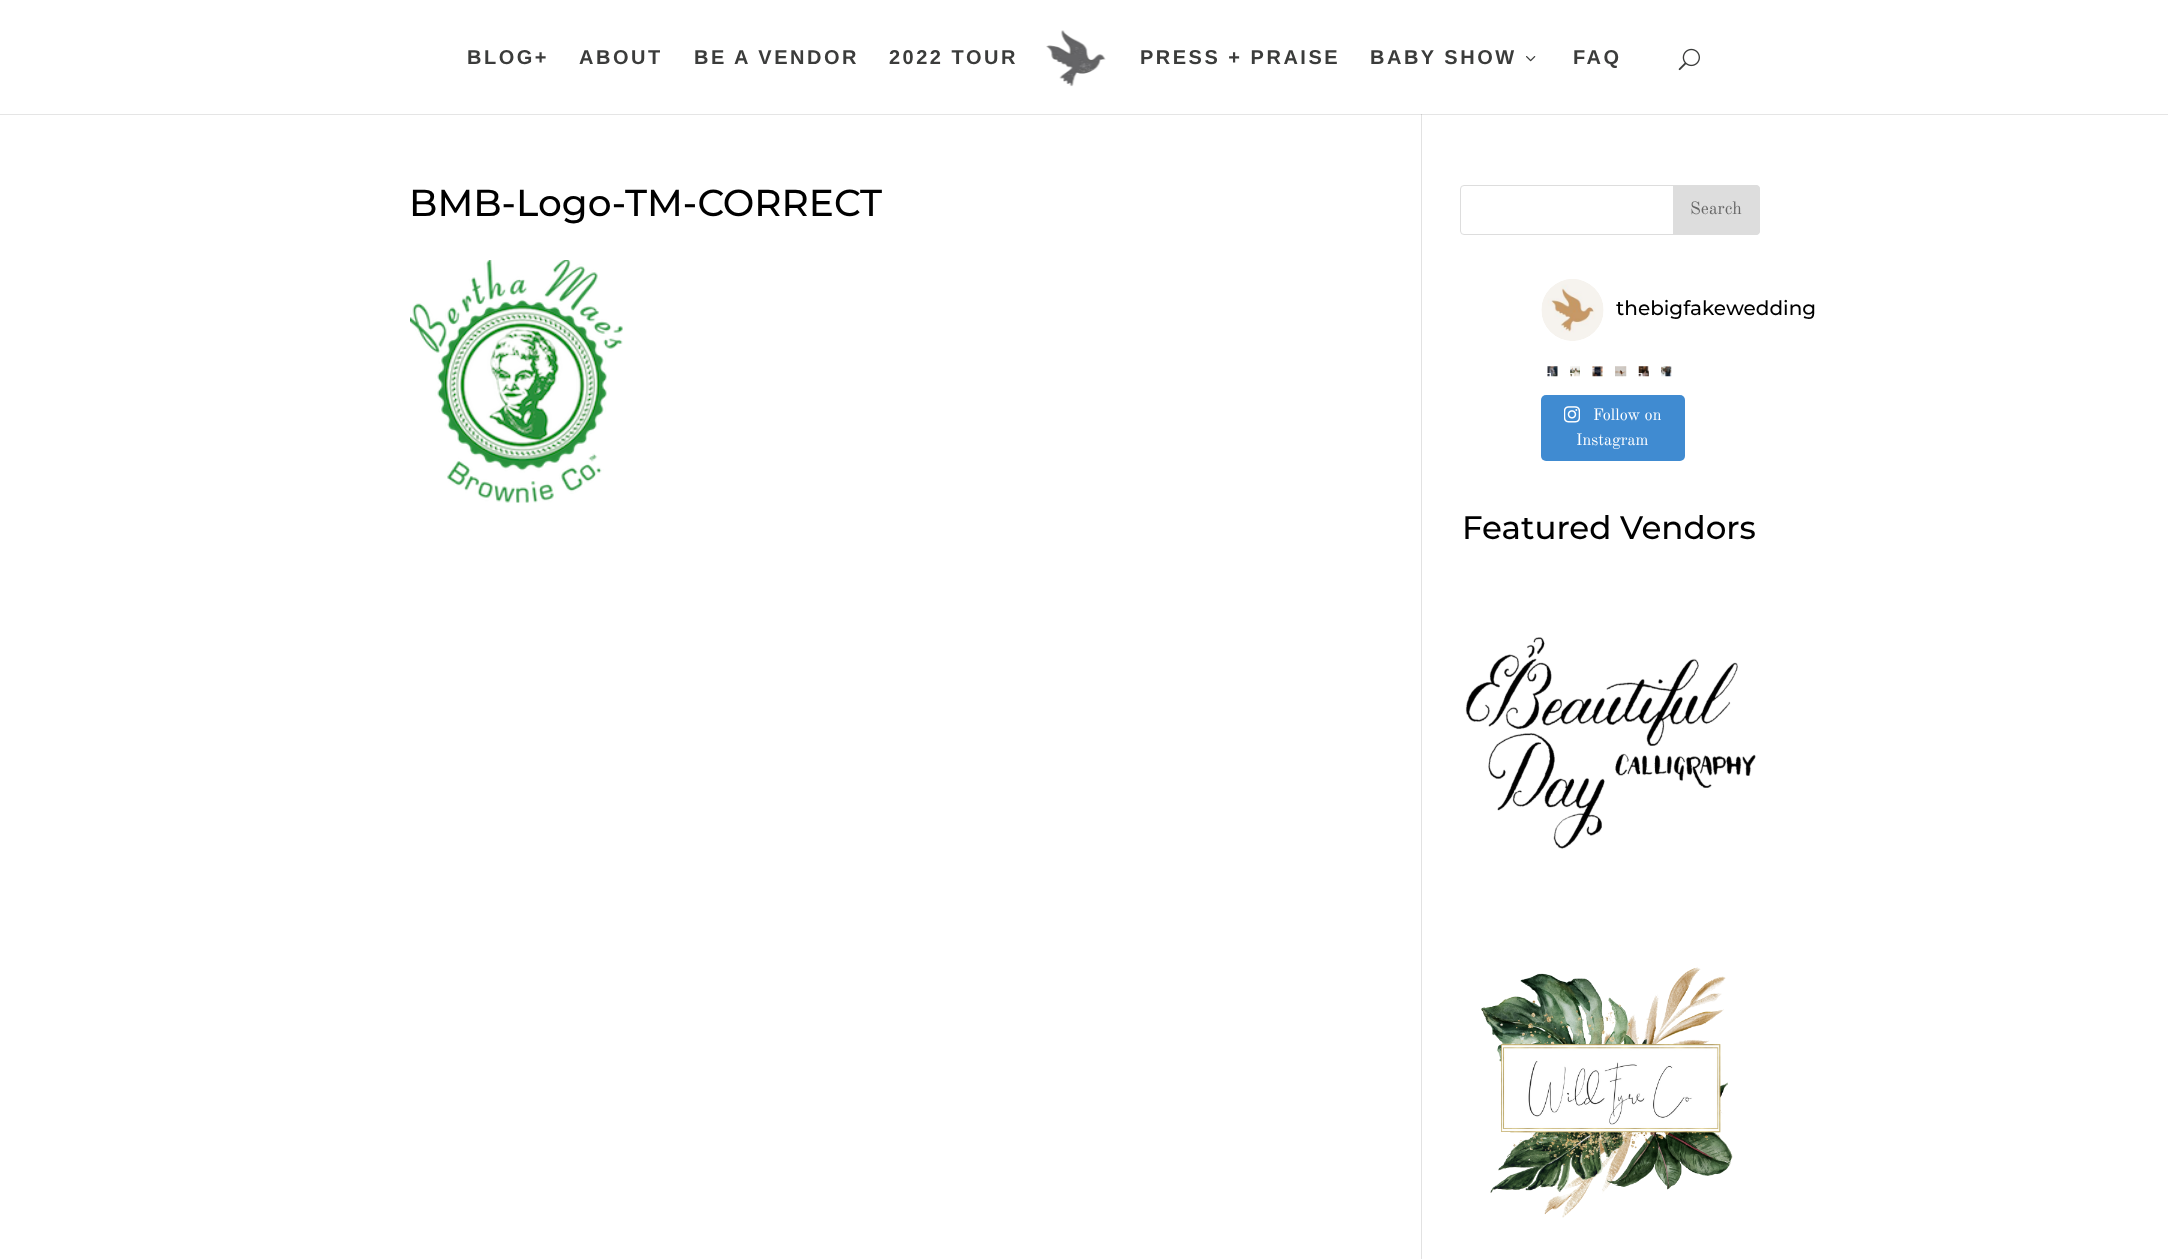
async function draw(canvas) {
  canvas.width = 2168
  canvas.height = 1259
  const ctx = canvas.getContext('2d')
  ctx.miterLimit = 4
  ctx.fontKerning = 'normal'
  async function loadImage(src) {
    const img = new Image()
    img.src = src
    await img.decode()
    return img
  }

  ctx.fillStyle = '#fff'
  ctx.fillRect(0, 0, 2168, 1259)
  ctx.fillStyle = '#e2e2e2'
  ctx.fillRect(1421, 113, 1, 1146)
  ctx.fillStyle = '#0000001a'
  ctx.beginPath()
  ctx.moveTo(0, 114)
  ctx.lineTo(0, 115)
  ctx.lineTo(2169, 115)
  ctx.lineTo(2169, 1)
  ctx.lineTo(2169, 114)
  ctx.closePath()
  ctx.fill()
  ctx.fillStyle = '#fff'
  ctx.fillRect(1421, 113, 1, 1)
  ctx.letterSpacing = '2.5px'
  ctx.font = 'bold 20px Liberation Sans'
  ctx.fillStyle = '#3b3c3b'
  ctx.fillText('BLOG+', 467, 64)
  ctx.fillText('ABOUT', 579, 64)
  ctx.fillText('BE A VENDOR', 694, 64)
  ctx.fillText('2022 TOUR', 889, 64)
  ctx.drawImage(await loadImage('image0.png'), 1046, 30, 60, 57)
  ctx.fillText('PRESS + PRAISE', 1140, 64)
  ctx.fillText('BABY SHOW', 1370, 64)
  ctx.drawImage(await loadImage('image1.png'), 1526, 56, 10, 6)
  ctx.fillText('FAQ', 1573, 64)
  ctx.drawImage(await loadImage('image2.png'), 1678, 48, 22, 23)
  ctx.letterSpacing = '0px'
  ctx.font = '500 37.5px Montserrat'
  ctx.fillStyle = '#000'
  ctx.fillText('BMB-Logo-TM-CORRECT', 409, 216)
  ctx.drawImage(await loadImage('image3.png'), 410, 260, 213, 243)
  ctx.beginPath()
  ctx.roundRect(1460.5, 185.5, 299, 49, 3.5)
  ctx.strokeStyle = '#ddd'
  ctx.stroke()
  ctx.fillStyle = '#ddd'
  ctx.beginPath()
  ctx.roundRect(1673.5, 185.5, 86, 49, [0, 3.5, 3.5, 0])
  ctx.fill()
  ctx.stroke()
  ctx.font = '17.5px Old Standard TT'
  ctx.fillStyle = '#666'
  ctx.fillText('Search', 1690, 214)
  ctx.drawImage(await loadImage('image4.png'), 1541, 279, 63, 62)
  ctx.font = '500 20px Montserrat'
  ctx.fillStyle = '#000'
  ctx.fillText('thebigfakewedding', 1616, 315)
  ctx.drawImage(await loadImage('image5.png'), 1547, 366, 11, 11)
  ctx.drawImage(await loadImage('image6.png'), 1547, 373, 4, 4)
  ctx.drawImage(await loadImage('image7.png'), 1570, 366, 10, 11)
  ctx.drawImage(await loadImage('image8.png'), 1570, 373, 4, 4)
  ctx.drawImage(await loadImage('image9.png'), 1592, 366, 11, 11)
  ctx.drawImage(await loadImage('image10.png'), 1615, 366, 12, 11)
  ctx.drawImage(await loadImage('image11.png'), 1638, 366, 11, 11)
  ctx.drawImage(await loadImage('image12.png'), 1638, 373, 5, 4)
  ctx.drawImage(await loadImage('image13.png'), 1661, 366, 11, 11)
  ctx.fillStyle = '#408bd1'
  ctx.beginPath()
  ctx.roundRect(1541, 395, 144, 66, 5)
  ctx.fill()
  ctx.drawImage(await loadImage('image14.png'), 1564, 406, 16, 17)
  ctx.font = '16.25px Old Standard TT'
  ctx.fillStyle = '#fff'
  ctx.fillText('Follow on', 1593, 420)
  ctx.fillText('Instagram', 1576, 445)
  ctx.font = '500 32.5px Montserrat'
  ctx.fillStyle = '#000'
  ctx.fillText('Featured Vendors', 1462, 539)
  ctx.drawImage(await loadImage('image15.png'), 1465, 637, 291, 212)
  ctx.drawImage(await loadImage('image16.png'), 1481, 967, 252, 251)
}

draw(document.querySelector('canvas'))
